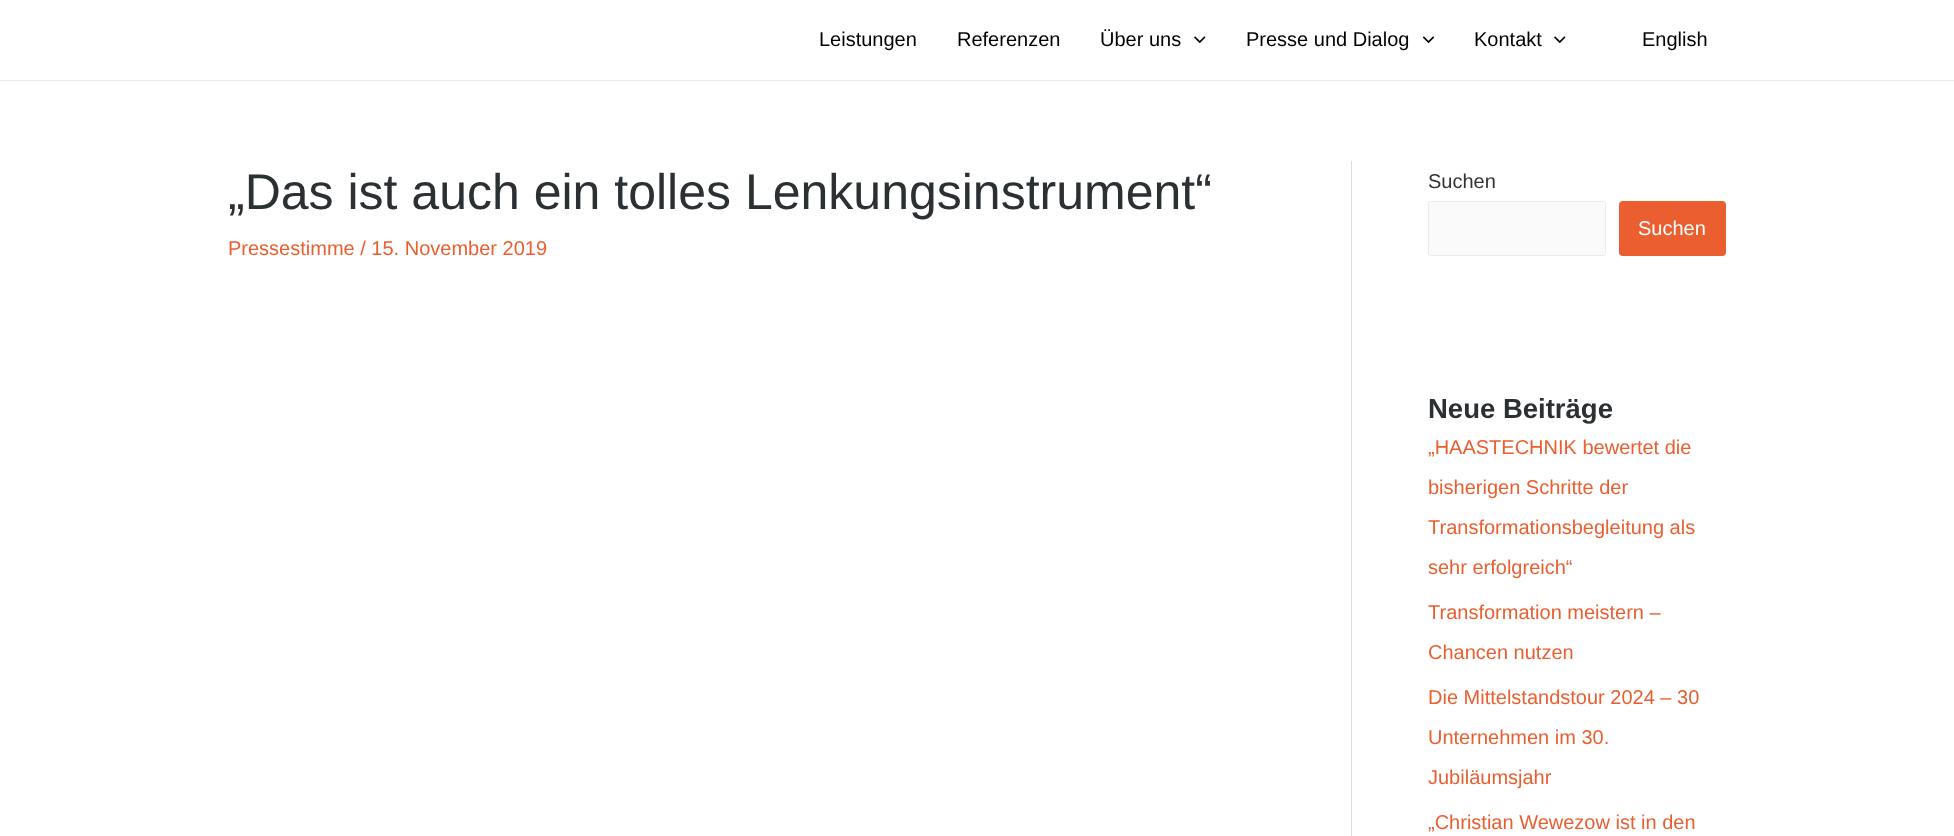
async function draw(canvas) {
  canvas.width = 1954
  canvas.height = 836
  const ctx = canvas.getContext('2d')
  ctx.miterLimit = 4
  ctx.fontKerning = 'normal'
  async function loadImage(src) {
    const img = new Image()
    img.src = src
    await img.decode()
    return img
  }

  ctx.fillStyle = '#fff'
  ctx.fillRect(0, 0, 1954, 836)
  ctx.fillStyle = '#eaeaea'
  ctx.fillRect(0, 80, 1954, 1)
  ctx.font = '20px Liberation Sans'
  ctx.fillStyle = '#000'
  ctx.fillText('Leistungen', 819, 46)
  ctx.fillText('Referenzen', 957, 46)
  ctx.fillText('Über uns', 1100, 46)
  ctx.drawImage(await loadImage('image0.png'), 1194, 36, 12, 8)
  ctx.fillText('Presse und Dialog', 1246, 46)
  ctx.drawImage(await loadImage('image1.png'), 1423, 36, 11, 8)
  ctx.fillText('Kontakt', 1474, 46)
  ctx.drawImage(await loadImage('image0.png'), 1554, 36, 12, 8)
  ctx.fillText('English', 1642, 46)
  ctx.fillStyle = '#ddd'
  ctx.fillRect(1351, 161, 1, 675)
  ctx.font = '50px Liberation Sans'
  ctx.fillStyle = '#2b3033'
  ctx.fillText('„Das ist auch ein tolles Lenkungsinstrument“', 228, 209)
  ctx.font = '20px Liberation Sans'
  ctx.fillStyle = '#eb5e2f'
  ctx.fillText('Pressestimme / 15. November 2019', 228, 255)
  ctx.fillStyle = '#353131'
  ctx.fillText('Suchen', 1428, 188)
  ctx.fillStyle = '#fafafa'
  ctx.beginPath()
  ctx.roundRect(1428.5, 201.5, 177, 54, 2)
  ctx.fill()
  ctx.strokeStyle = '#eaeaea'
  ctx.stroke()
  ctx.fillStyle = '#eb5e2f'
  ctx.beginPath()
  ctx.roundRect(1619, 201, 107, 55, 4)
  ctx.fill()
  ctx.fillStyle = '#fff'
  ctx.fillText('Suchen', 1638, 235)
  ctx.font = 'bold 27.5px Liberation Sans'
  ctx.fillStyle = '#2b3033'
  ctx.fillText('Neue Beiträge', 1428, 418)
  ctx.font = '20px Liberation Sans'
  ctx.fillStyle = '#eb5e2f'
  ctx.fillText('„HAASTECHNIK bewertet die', 1428, 454)
  ctx.fillText('bisherigen Schritte der', 1428, 494)
  ctx.fillText('Transformationsbegleitung als', 1428, 534)
  ctx.fillText('sehr erfolgreich“', 1428, 574)
  ctx.fillText('Transformation meistern –', 1428, 619)
  ctx.fillText('Chancen nutzen', 1428, 659)
  ctx.fillText('Die Mittelstandstour 2024 – 30', 1428, 704)
  ctx.fillText('Unternehmen im 30.', 1428, 744)
  ctx.fillText('Jubiläumsjahr', 1428, 784)
  ctx.fillText('„Christian Wewezow ist in den', 1428, 829)
}

draw(document.querySelector('canvas'))
